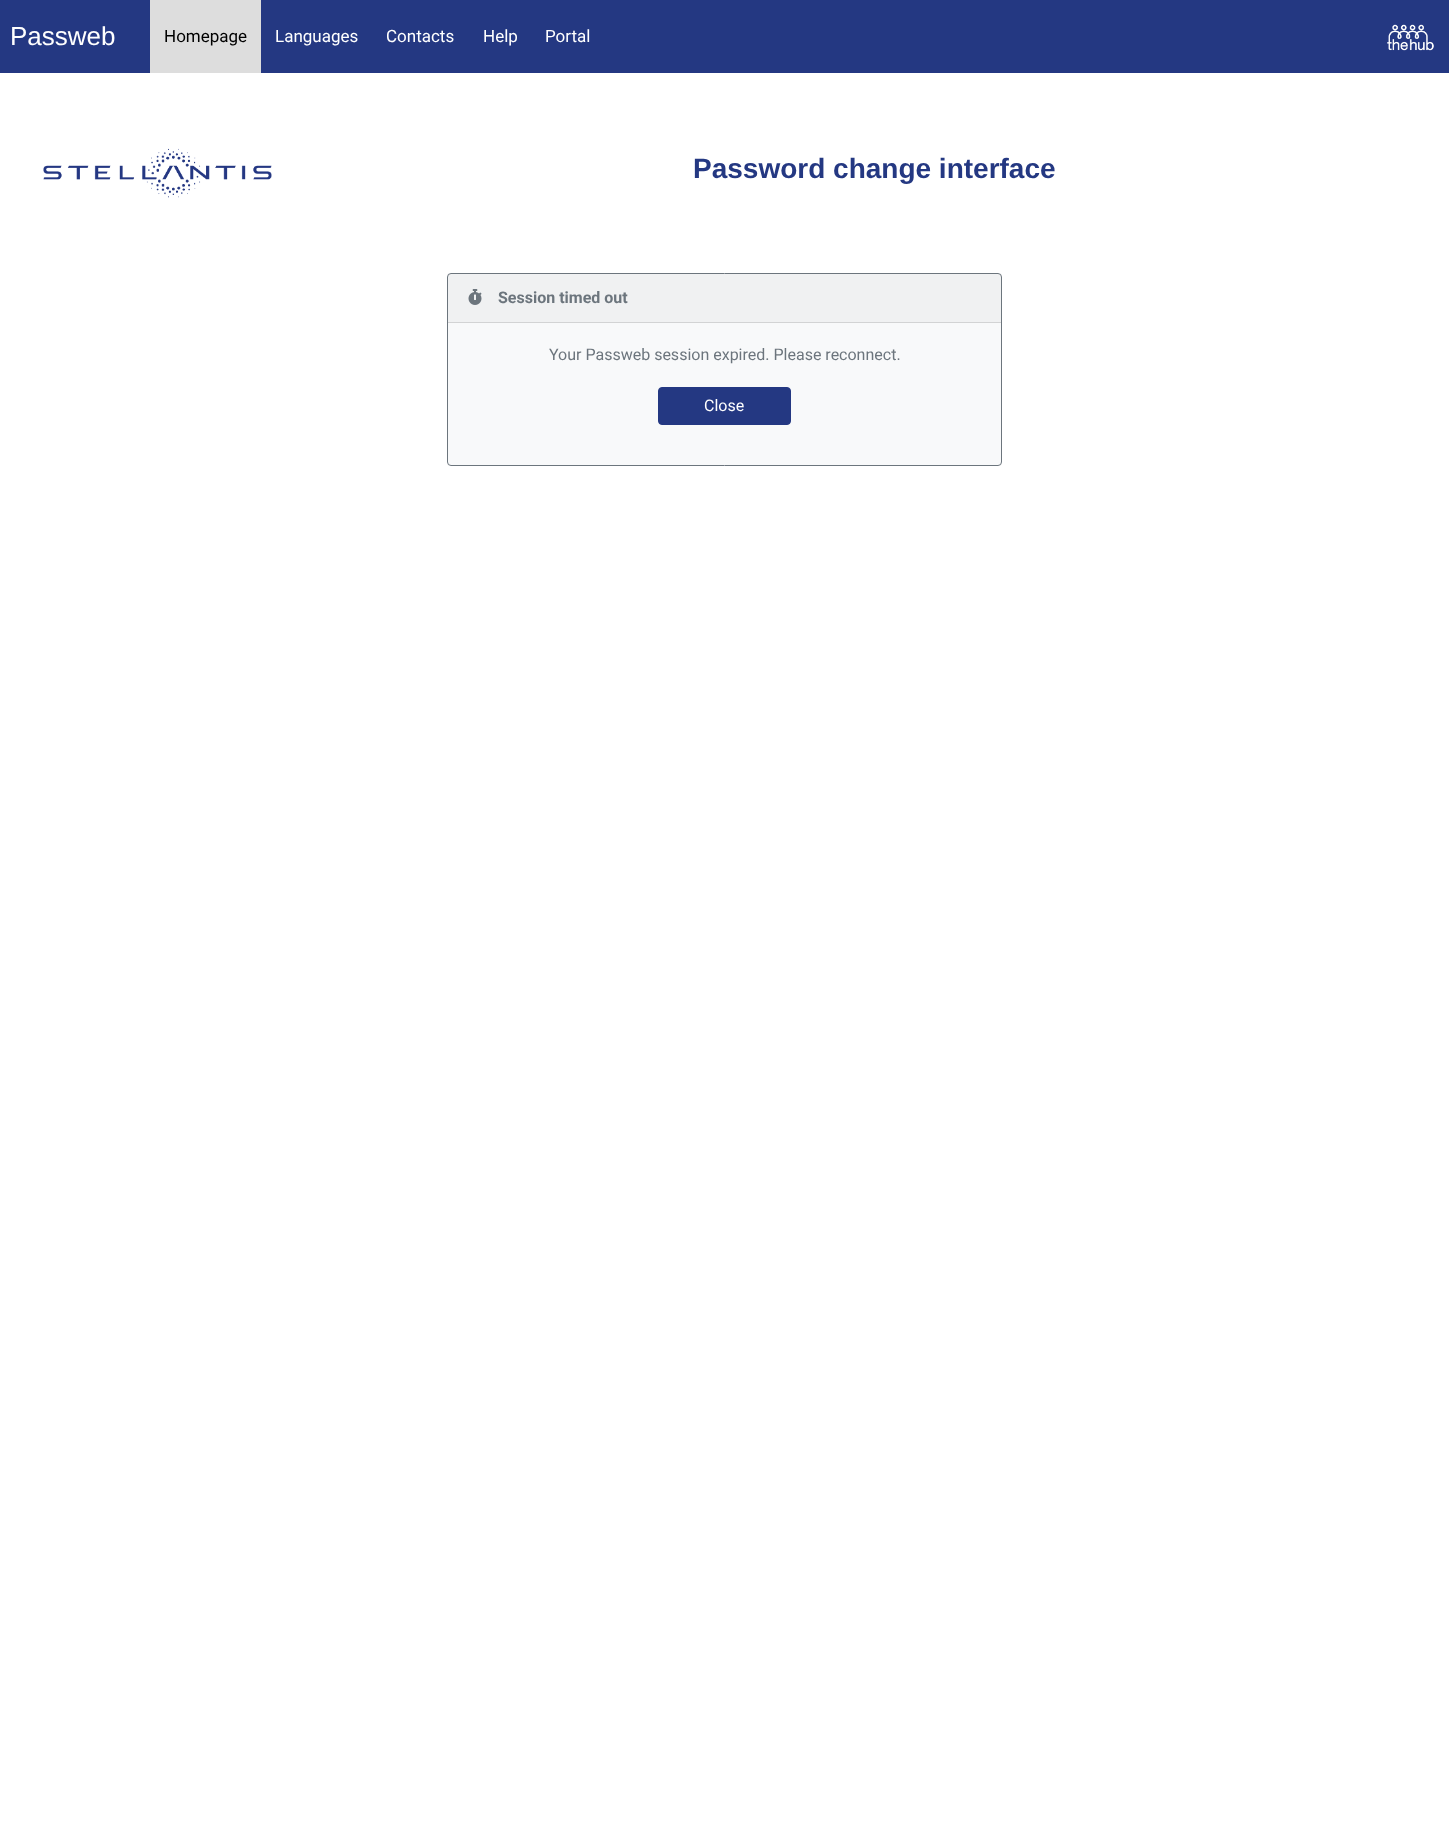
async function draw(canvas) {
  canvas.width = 1449
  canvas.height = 1823
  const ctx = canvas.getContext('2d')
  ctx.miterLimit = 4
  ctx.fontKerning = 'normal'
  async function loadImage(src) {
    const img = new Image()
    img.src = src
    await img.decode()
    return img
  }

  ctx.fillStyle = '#fff'
  ctx.fillRect(0, 0, 1449, 1823)
  ctx.fillStyle = '#243882'
  ctx.fillRect(0, 0, 1449, 73)
  ctx.font = '26px Liberation Sans'
  ctx.fillStyle = '#fff'
  ctx.fillText('Passweb', 10, 45)
  ctx.fillStyle = '#ddd'
  ctx.fillRect(150, 0, 111, 73)
  ctx.font = '17px Roboto'
  ctx.fillStyle = '#000'
  ctx.fillText('Homepage', 164, 42)
  ctx.fillStyle = '#fff'
  ctx.fillText('Languages', 275, 42)
  ctx.fillText('Contacts', 386, 42)
  ctx.fillText('Help', 483, 42)
  ctx.fillText('Portal', 545, 42)
  ctx.drawImage(await loadImage('image0.png'), 1387, 24, 47, 27)
  ctx.drawImage(await loadImage('image1.png'), 43, 148, 229, 50)
  ctx.font = 'bold 28px Liberation Sans'
  ctx.fillStyle = '#243882'
  ctx.fillText('Password change interface', 693, 178)
  ctx.fillStyle = '#f8f9fa'
  ctx.beginPath()
  ctx.roundRect(447.5, 273.5, 554, 192, 3.5)
  ctx.fill()
  ctx.strokeStyle = '#6c757d'
  ctx.stroke()
  ctx.fillStyle = '#00000008'
  ctx.fillRect(448, 274, 553, 48)
  ctx.fillStyle = '#d2d3d4'
  ctx.fillRect(448, 322, 553, 1)
  ctx.drawImage(await loadImage('image2.png'), 468, 289, 14, 16)
  ctx.font = 'bold 16px Roboto'
  ctx.fillStyle = '#6c757d'
  ctx.fillText('Session timed out', 498, 303)
  ctx.font = '16px Roboto'
  ctx.fillText('Your Passweb session expired. Please reconnect.', 549, 360)
  ctx.fillStyle = '#243882'
  ctx.beginPath()
  ctx.roundRect(658.5, 387.5, 132, 37, 3.5)
  ctx.fill()
  ctx.strokeStyle = '#243882'
  ctx.stroke()
  ctx.fillStyle = '#fff'
  ctx.fillText('Close', 704, 411)
}

draw(document.querySelector('canvas'))
